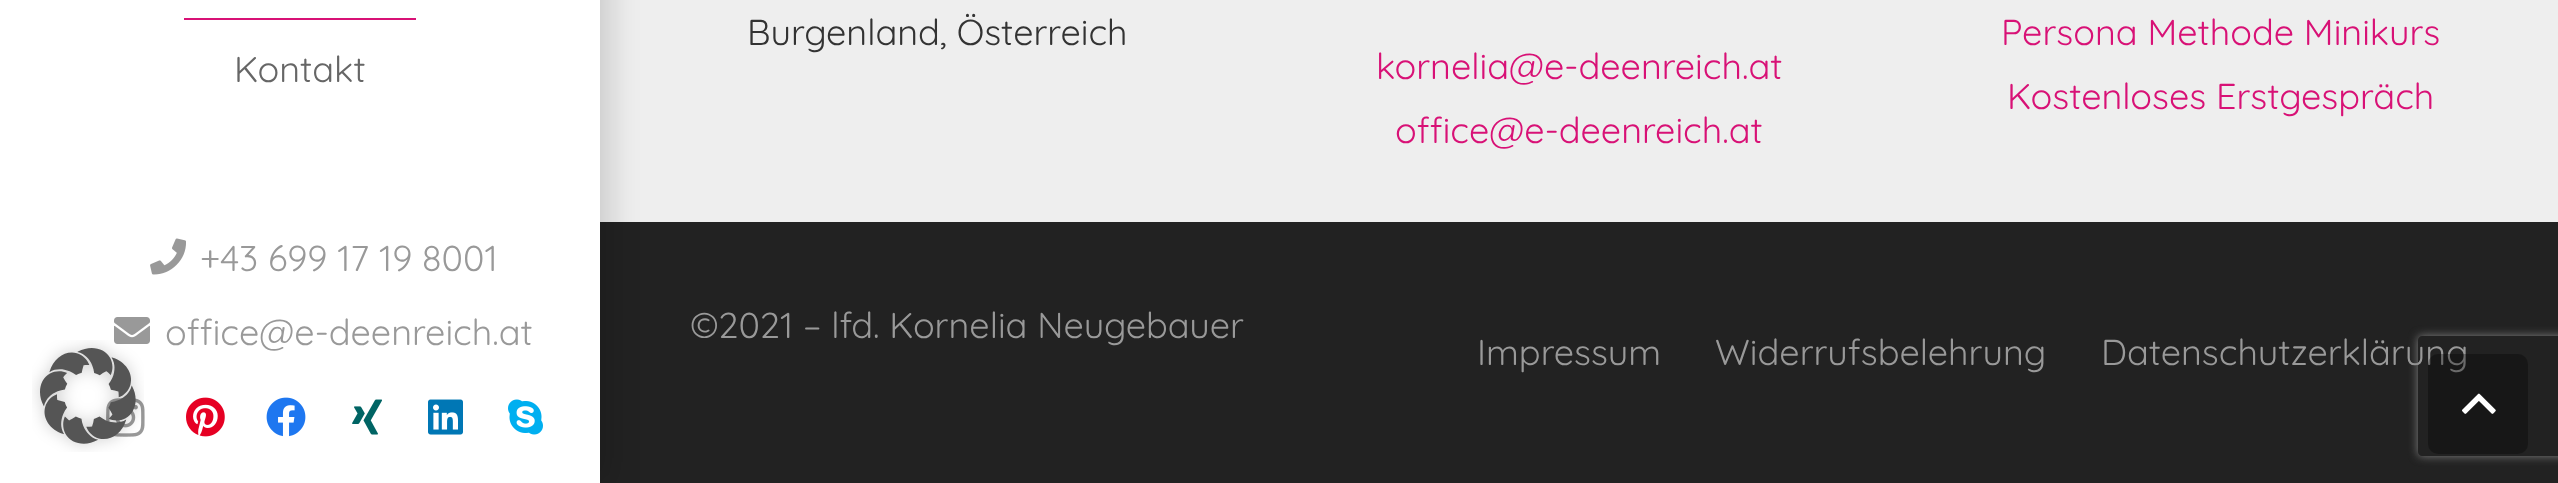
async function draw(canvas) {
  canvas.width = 2558
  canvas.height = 483
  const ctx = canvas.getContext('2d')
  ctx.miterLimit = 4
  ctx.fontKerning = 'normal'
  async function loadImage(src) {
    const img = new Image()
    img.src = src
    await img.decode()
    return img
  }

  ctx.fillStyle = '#eee'
  ctx.fillRect(0, 0, 2558, 483)
  ctx.fillStyle = '#222'
  ctx.fillRect(600, 222, 1958, 261)
  ctx.fillStyle = '#00000026'
  ctx.filter = 'blur(15px)'
  ctx.beginPath()
  ctx.rect(10, -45, 600, 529)
  ctx.fill()
  ctx.filter = 'none'
  ctx.fillStyle = '#fff'
  ctx.fillRect(0, 0, 600, 483)
  ctx.fillStyle = '#d81176'
  ctx.fillRect(184, 18, 232, 2)
  ctx.font = '36px Quicksand'
  ctx.fillStyle = '#666'
  ctx.fillText('Kontakt', 234, 82)
  ctx.drawImage(await loadImage('image0.png'), 150, 238, 36, 37)
  ctx.fillStyle = '#999'
  ctx.fillText('+43 699 17 19 8001', 200, 271)
  ctx.drawImage(await loadImage('image1.png'), 114, 317, 36, 27)
  ctx.fillText('office@e-deenreich.at', 165, 345)
  ctx.drawImage(await loadImage('image2.png'), 106, 398, 39, 39)
  ctx.drawImage(await loadImage('image3.png'), 186, 397, 39, 40)
  ctx.drawImage(await loadImage('image4.png'), 266, 397, 40, 40)
  ctx.drawImage(await loadImage('image5.png'), 352, 399, 30, 36)
  ctx.drawImage(await loadImage('image6.png'), 428, 399, 35, 36)
  ctx.drawImage(await loadImage('image7.png'), 508, 399, 35, 36)
  ctx.fillStyle = '#333'
  ctx.fillText('Burgenland, Österreich', 747, 45)
  ctx.fillStyle = '#d81176'
  ctx.fillText('kornelia@e-deenreich.at', 1376, 79)
  ctx.fillText('office@e-deenreich.at', 1395, 143)
  ctx.fillText('Persona Methode Minikurs', 2001, 45)
  ctx.fillText('Kostenloses Erstgespräch', 2007, 109)
  ctx.fillStyle = '#999'
  ctx.fillText('©2021 – lfd. Kornelia Neugebauer', 690, 338)
  ctx.fillText('Impressum', 1477, 365)
  ctx.fillText('Widerrufsbelehrung', 1715, 365)
  ctx.fillText('Datenschutzerklärung', 2101, 365)
  ctx.drawImage(await loadImage('image8.png'), 32, 340, 112, 112)
  ctx.save()
  ctx.beginPath()
  ctx.moveTo(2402, 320)
  ctx.lineTo(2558, 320)
  ctx.lineTo(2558, 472)
  ctx.lineTo(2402, 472)
  ctx.closePath()
  ctx.moveTo(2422, 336)
  ctx.lineTo(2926, 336)
  ctx.bezierCurveTo(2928, 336, 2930, 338, 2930, 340)
  ctx.lineTo(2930, 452)
  ctx.bezierCurveTo(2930, 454, 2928, 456, 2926, 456)
  ctx.lineTo(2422, 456)
  ctx.bezierCurveTo(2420, 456, 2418, 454, 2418, 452)
  ctx.lineTo(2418, 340)
  ctx.bezierCurveTo(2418, 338, 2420, 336, 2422, 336)
  ctx.closePath()
  ctx.clip('evenodd')
  ctx.fillStyle = '#808080'
  ctx.filter = 'blur(5px)'
  ctx.beginPath()
  ctx.roundRect(2418, 336, 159, 120, 4)
  ctx.fill()
  ctx.filter = 'none'
  ctx.restore()
  ctx.fillStyle = '#0000004d'
  ctx.beginPath()
  ctx.roundRect(2428, 354, 100, 100, 10)
  ctx.fill()
  ctx.drawImage(await loadImage('image9.png'), 2462, 393, 34, 21)
}

draw(document.querySelector('canvas'))
